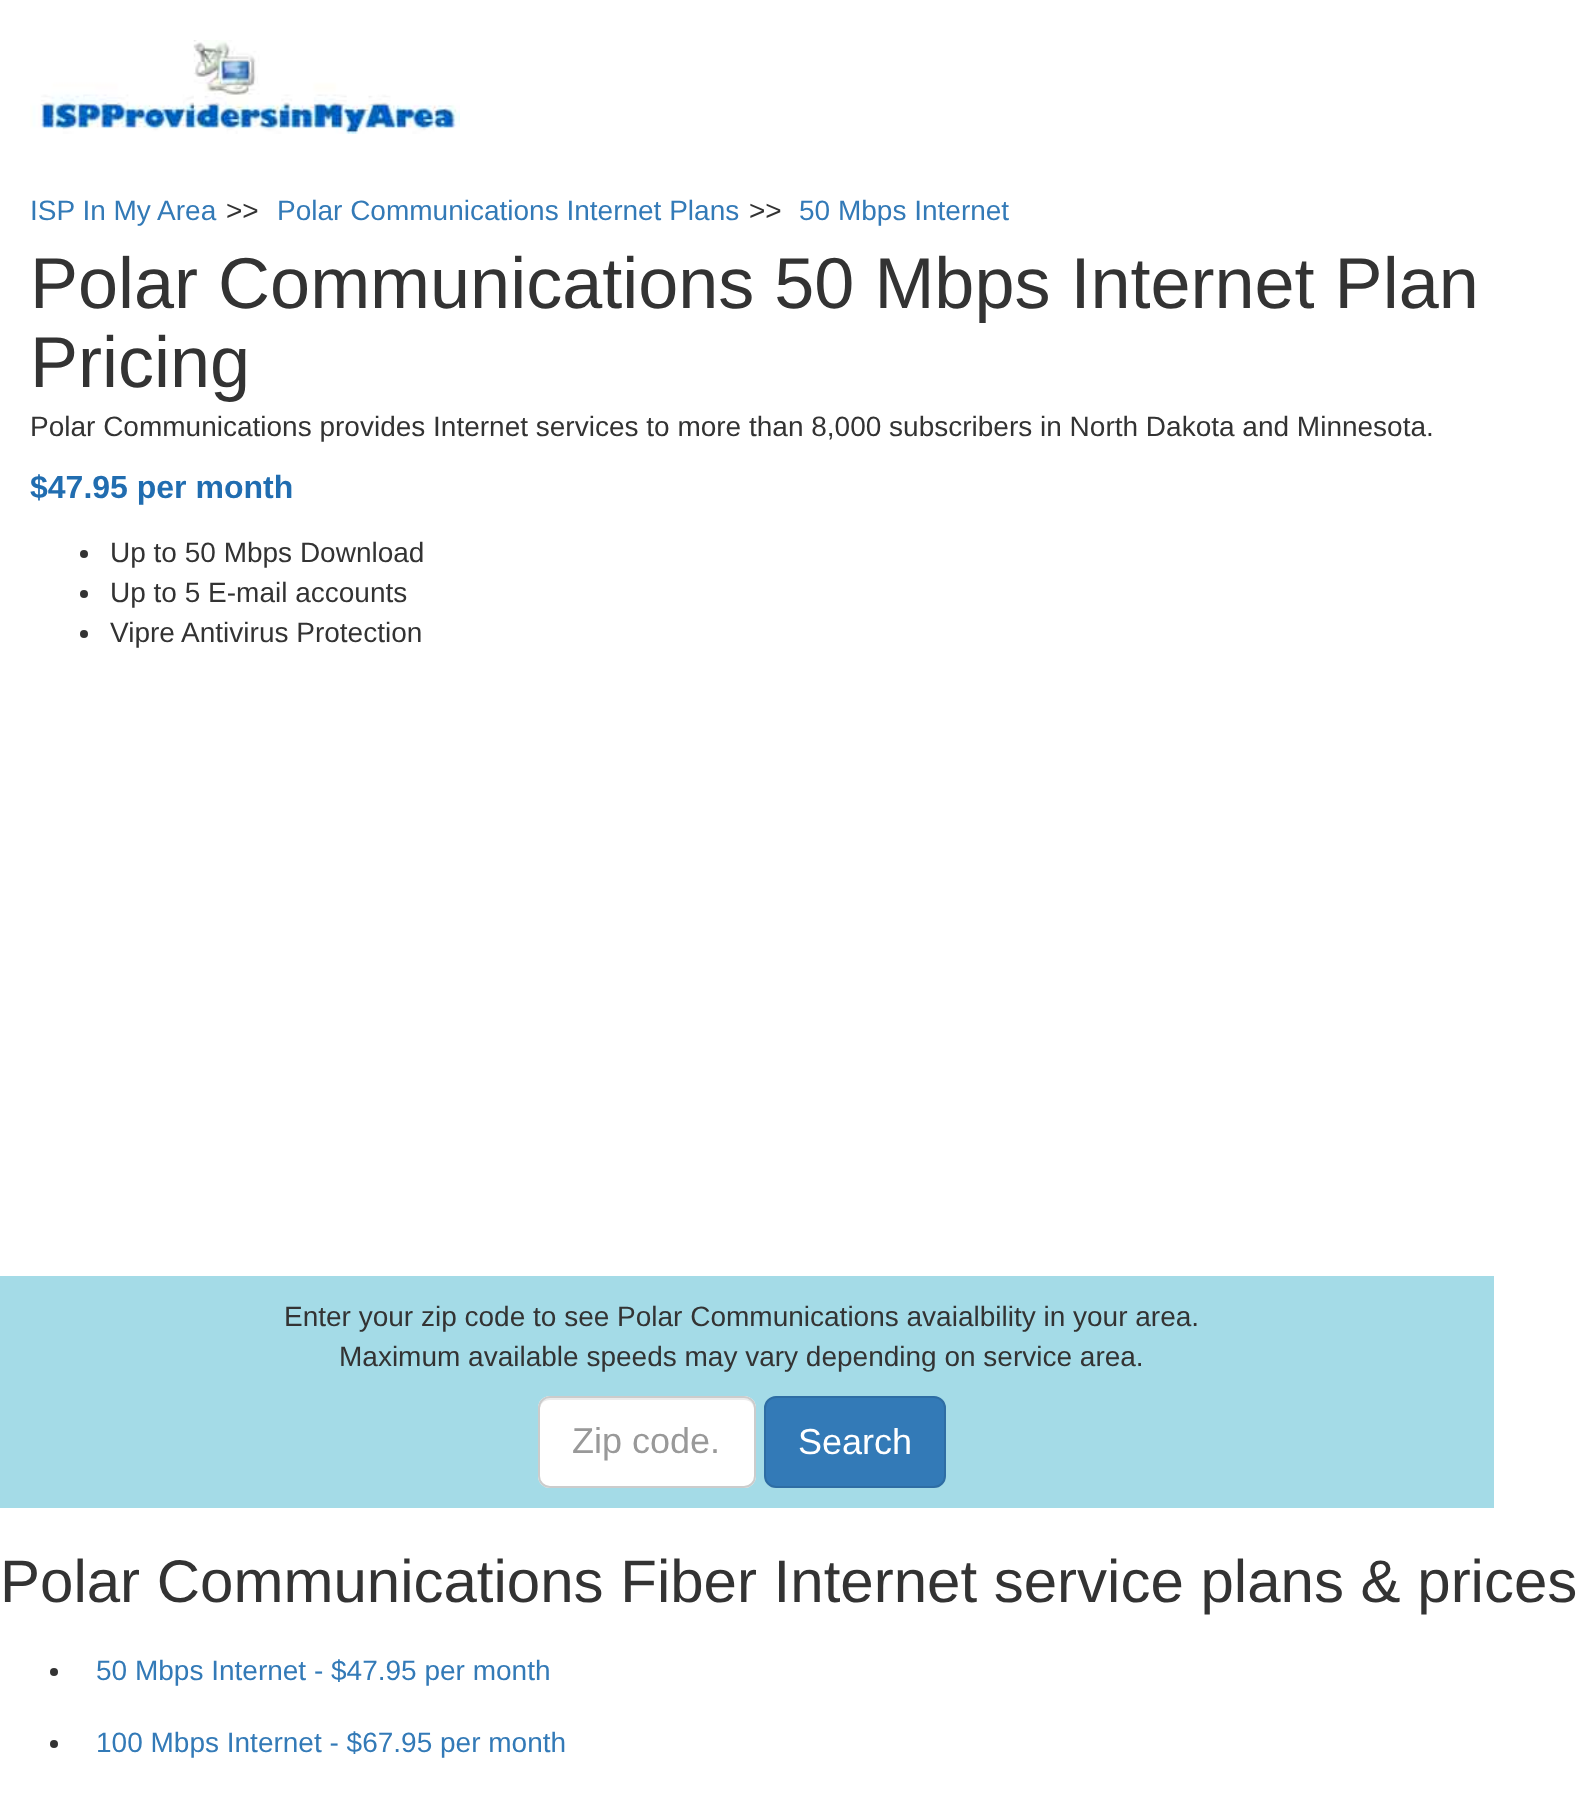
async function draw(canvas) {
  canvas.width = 1579
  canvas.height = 1811
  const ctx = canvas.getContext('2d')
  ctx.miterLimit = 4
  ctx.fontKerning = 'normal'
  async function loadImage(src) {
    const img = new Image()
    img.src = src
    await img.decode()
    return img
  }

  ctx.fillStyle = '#fff'
  ctx.fillRect(0, 0, 1579, 1811)
  ctx.drawImage(await loadImage('image0.png'), 30, 40, 430, 94)
  ctx.font = '28px Liberation Sans'
  ctx.fillStyle = '#337ab7'
  ctx.fillText('ISP In My Area', 30, 220)
  ctx.fillStyle = '#333'
  ctx.fillText('>>', 226, 220)
  ctx.fillStyle = '#337ab7'
  ctx.fillText('Polar Communications Internet Plans', 277, 220)
  ctx.fillStyle = '#333'
  ctx.fillText('>>', 749, 220)
  ctx.fillStyle = '#337ab7'
  ctx.fillText('50 Mbps Internet', 799, 220)
  ctx.font = '72px Liberation Sans'
  ctx.fillStyle = '#333'
  ctx.fillText('Polar Communications 50 Mbps Internet Plan', 30, 308)
  ctx.fillText('Pricing', 30, 387)
  ctx.font = '28px Liberation Sans'
  ctx.fillText('Polar Communications provides Internet services to more than 8,000 subscribers in North Dakota and Minnesota.', 30, 436)
  ctx.font = 'bold 32px Liberation Sans'
  ctx.fillStyle = '#216db0'
  ctx.fillText('$47.95 per month', 30, 498)
  ctx.fillStyle = '#333'
  ctx.beginPath()
  ctx.arc(84, 554, 4, 0, 2 * Math.PI)
  ctx.fill()
  ctx.font = '28px Liberation Sans'
  ctx.fillText('Up to 50 Mbps Download', 110, 562)
  ctx.beginPath()
  ctx.arc(84, 594, 4, 0, 2 * Math.PI)
  ctx.fill()
  ctx.fillText('Up to 5 E-mail accounts', 110, 602)
  ctx.beginPath()
  ctx.arc(84, 634, 4, 0, 2 * Math.PI)
  ctx.fill()
  ctx.fillText('Vipre Antivirus Protection', 110, 642)
  ctx.fillStyle = '#a4dbe7'
  ctx.fillRect(0, 1276, 1494, 232)
  ctx.fillStyle = '#333'
  ctx.fillText('Enter your zip code to see Polar Communications avaialbility in your area.', 284, 1326)
  ctx.fillText('Maximum available speeds may vary depending on service area.', 339, 1366)
  ctx.fillStyle = '#fff'
  ctx.beginPath()
  ctx.roundRect(538, 1396, 218, 92, 12)
  ctx.fill()
  ctx.fillStyle = '#ececec'
  ctx.beginPath()
  ctx.moveTo(550, 1400)
  ctx.lineTo(744, 1400)
  ctx.bezierCurveTo(750, 1400, 754, 1404, 754, 1410)
  ctx.lineTo(754, 1408)
  ctx.bezierCurveTo(754, 1402, 750, 1398, 744, 1398)
  ctx.lineTo(550, 1398)
  ctx.bezierCurveTo(544, 1398, 540, 1402, 540, 1408)
  ctx.lineTo(540, 1410)
  ctx.bezierCurveTo(540, 1404, 544, 1400, 550, 1400)
  ctx.closePath()
  ctx.fill()
  ctx.beginPath()
  ctx.roundRect(539, 1397, 216, 90, 11)
  ctx.strokeStyle = '#ccc'
  ctx.lineWidth = 2
  ctx.stroke()
  ctx.font = '36px Liberation Sans'
  ctx.fillStyle = '#999'
  ctx.fillText('Zip code.', 572, 1453)
  ctx.fillStyle = '#337ab7'
  ctx.beginPath()
  ctx.roundRect(765, 1397, 180, 90, 11)
  ctx.fill()
  ctx.strokeStyle = '#2e6da4'
  ctx.stroke()
  ctx.fillStyle = '#fff'
  ctx.fillText('Search', 798, 1454)
  ctx.font = '60px Liberation Sans'
  ctx.fillStyle = '#333'
  ctx.fillText('Polar Communications Fiber Internet service plans & prices', 0, 1602)
  ctx.beginPath()
  ctx.arc(54, 1672, 4, 0, 2 * Math.PI)
  ctx.fill()
  ctx.font = '28px Liberation Sans'
  ctx.fillStyle = '#337ab7'
  ctx.fillText('50 Mbps Internet - $47.95 per month', 96, 1680)
  ctx.fillStyle = '#333'
  ctx.beginPath()
  ctx.arc(54, 1744, 4, 0, 2 * Math.PI)
  ctx.fill()
  ctx.fillStyle = '#337ab7'
  ctx.fillText('100 Mbps Internet - $67.95 per month', 96, 1752)
}

draw(document.querySelector('canvas'))
